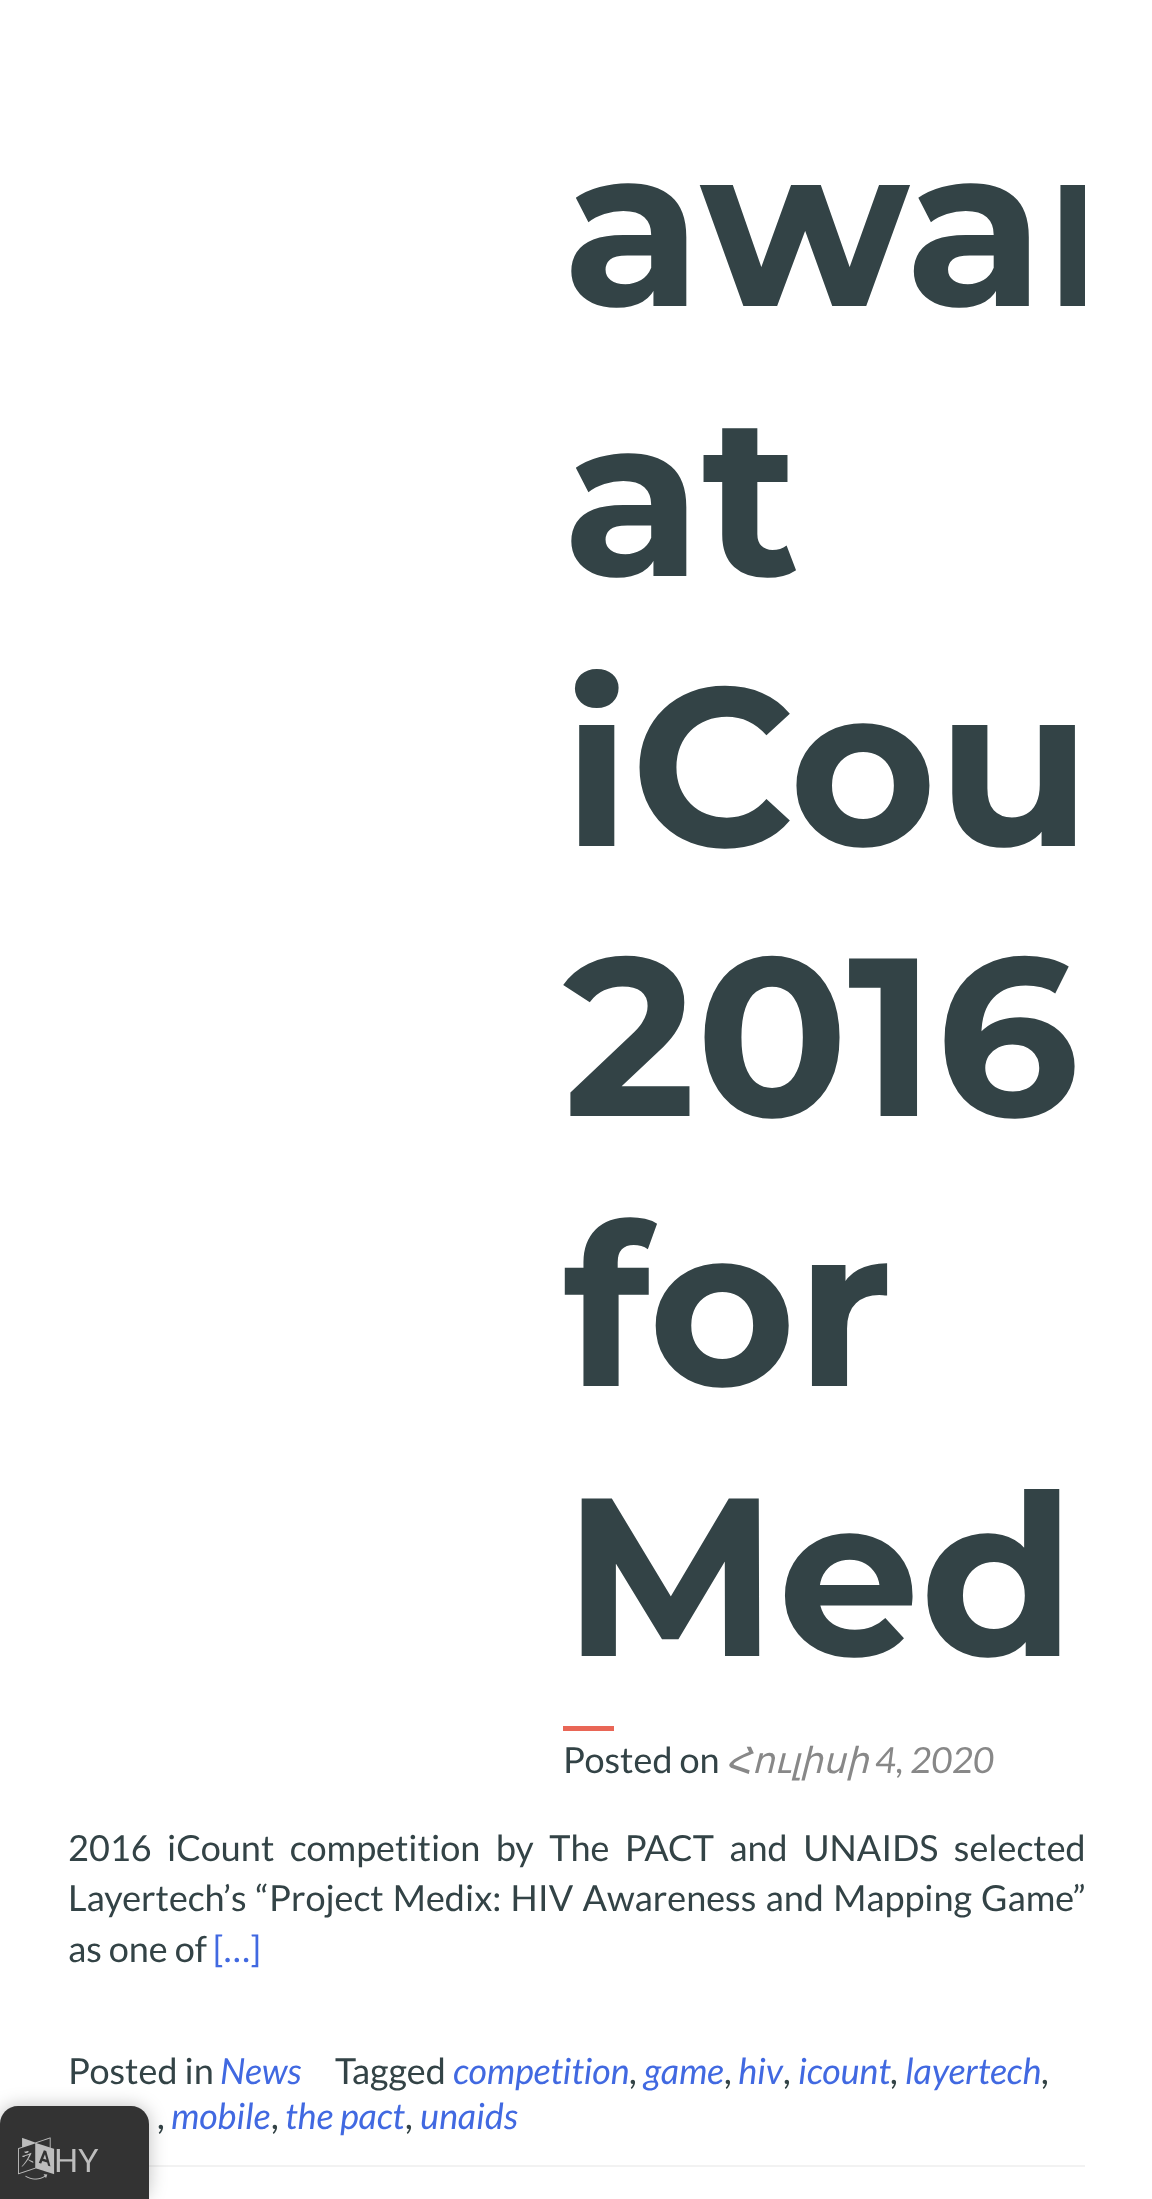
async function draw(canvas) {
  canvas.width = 1152
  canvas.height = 2199
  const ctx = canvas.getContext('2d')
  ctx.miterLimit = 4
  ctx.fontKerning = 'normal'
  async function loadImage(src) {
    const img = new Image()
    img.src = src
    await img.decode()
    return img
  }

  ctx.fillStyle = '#fff'
  ctx.fillRect(0, 0, 1152, 2199)
  ctx.fillStyle = '#f2f2f2'
  ctx.fillRect(149, 2165, 936, 2)
  ctx.save()
  ctx.beginPath()
  ctx.rect(563, 0, 522, 1787)
  ctx.clip()
  ctx.font = 'bold 225px Montserrat'
  ctx.fillStyle = '#334346'
  ctx.fillText('awar', 563, 306)
  ctx.restore()
  ctx.font = 'bold 225px Montserrat'
  ctx.fillStyle = '#334346'
  ctx.fillText('at', 563, 576)
  ctx.fillText('iCou', 563, 846)
  ctx.fillText('2016', 563, 1116)
  ctx.fillText('for', 563, 1386)
  ctx.fillText('Med', 563, 1656)
  ctx.fillStyle = '#e96656'
  ctx.fillRect(563, 1726, 51, 5)
  ctx.font = '36px Lato'
  ctx.fillStyle = '#334346'
  ctx.fillText('Posted on', 563, 1773)
  ctx.font = 'italic 36px DejaVu Sans'
  ctx.fillStyle = '#888'
  ctx.fillText('Հուլիսի', 726, 1773)
  ctx.font = 'italic 36px Lato'
  ctx.fillText('4, 2020', 875, 1773)
  ctx.wordSpacing = '8.5px'
  ctx.font = '36px Lato'
  ctx.fillStyle = '#334346'
  ctx.fillText('2016 iCount competition by The PACT and UNAIDS selected', 68, 1861)
  ctx.wordSpacing = '2.25px'
  ctx.fillText('Layertech’s “Project Medix: HIV Awareness and Mapping Game”', 68, 1911)
  ctx.wordSpacing = '0px'
  ctx.fillText('as one of', 68, 1962)
  ctx.fillStyle = '#4169e1'
  ctx.fillText('[…]', 213, 1962)
  ctx.fillStyle = '#334346'
  ctx.fillText('Posted in', 68, 2084)
  ctx.font = 'italic 36px Lato'
  ctx.fillStyle = '#4169e1'
  ctx.fillText('News', 220, 2084)
  ctx.font = '36px Lato'
  ctx.fillStyle = '#334346'
  ctx.fillText('Tagged', 335, 2084)
  ctx.font = 'italic 36px Lato'
  ctx.fillStyle = '#4169e1'
  ctx.fillText('competition', 453, 2084)
  ctx.font = '36px Lato'
  ctx.fillStyle = '#334346'
  ctx.fillText(',', 629, 2084)
  ctx.font = 'italic 36px Lato'
  ctx.fillStyle = '#4169e1'
  ctx.fillText('game', 644, 2084)
  ctx.font = '36px Lato'
  ctx.fillStyle = '#334346'
  ctx.fillText(',', 724, 2084)
  ctx.font = 'italic 36px Lato'
  ctx.fillStyle = '#4169e1'
  ctx.fillText('hiv', 738, 2084)
  ctx.font = '36px Lato'
  ctx.fillStyle = '#334346'
  ctx.fillText(',', 783, 2084)
  ctx.font = 'italic 36px Lato'
  ctx.fillStyle = '#4169e1'
  ctx.fillText('icount', 798, 2084)
  ctx.font = '36px Lato'
  ctx.fillStyle = '#334346'
  ctx.fillText(',', 890, 2084)
  ctx.font = 'italic 36px Lato'
  ctx.fillStyle = '#4169e1'
  ctx.fillText('layertech', 905, 2084)
  ctx.font = '36px Lato'
  ctx.fillStyle = '#334346'
  ctx.fillText(',', 1041, 2084)
  ctx.fillText(',', 157, 2129)
  ctx.font = 'italic 36px Lato'
  ctx.fillStyle = '#4169e1'
  ctx.fillText('mobile', 171, 2129)
  ctx.font = '36px Lato'
  ctx.fillStyle = '#334346'
  ctx.fillText(',', 271, 2129)
  ctx.font = 'italic 36px Lato'
  ctx.fillStyle = '#4169e1'
  ctx.fillText('the pact', 285, 2129)
  ctx.font = '36px Lato'
  ctx.fillStyle = '#334346'
  ctx.fillText(',', 405, 2129)
  ctx.font = 'italic 36px Lato'
  ctx.fillStyle = '#4169e1'
  ctx.fillText('unaids', 420, 2129)
  ctx.fillStyle = '#00000040'
  ctx.filter = 'blur(9px)'
  ctx.beginPath()
  ctx.roundRect(0, 2106, 149, 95, 18)
  ctx.fill()
  ctx.filter = 'none'
  ctx.fillStyle = '#333'
  ctx.beginPath()
  ctx.moveTo(18, 2106)
  ctx.lineTo(131, 2106)
  ctx.bezierCurveTo(141, 2106, 149, 2114, 149, 2124)
  ctx.lineTo(149, 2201)
  ctx.lineTo(0, 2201)
  ctx.lineTo(0, 2124)
  ctx.bezierCurveTo(0, 2114, 8, 2106, 18, 2106)
  ctx.closePath()
  ctx.fill()
  ctx.drawImage(await loadImage('image0.png'), 18, 2137, 37, 43)
  ctx.font = '32px Lato'
  ctx.fillStyle = '#bdbdbd'
  ctx.fillText('HY', 54, 2172)
}

draw(document.querySelector('canvas'))
